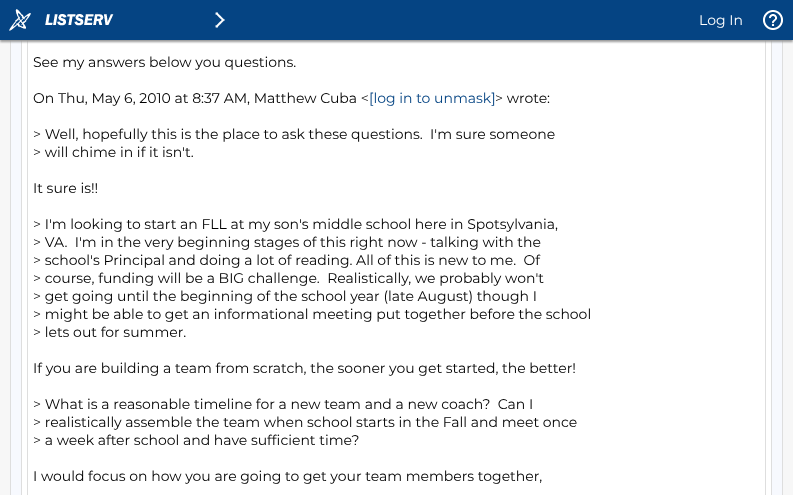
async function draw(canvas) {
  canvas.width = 793
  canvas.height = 495
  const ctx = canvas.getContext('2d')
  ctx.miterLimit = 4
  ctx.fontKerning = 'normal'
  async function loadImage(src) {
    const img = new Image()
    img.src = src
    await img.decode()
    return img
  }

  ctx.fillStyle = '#f7f7f7'
  ctx.fillRect(0, 0, 793, 495)
  ctx.fillStyle = '#f7f9fe'
  ctx.fillRect(11, 40, 771, 455)
  ctx.strokeStyle = '#dedede'
  ctx.strokeRect(10.5, -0.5, 772, 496)
  ctx.strokeRect(21.5, -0.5, 750, 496)
  ctx.fillStyle = '#fff'
  ctx.fillRect(22, 40, 749, 455)
  ctx.strokeRect(27.5, -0.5, 738, 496)
  ctx.fillStyle = '#999'
  ctx.filter = 'blur(1px)'
  ctx.beginPath()
  ctx.rect(0, 2, 793, 40)
  ctx.fill()
  ctx.filter = 'none'
  ctx.fillStyle = '#054483'
  ctx.fillRect(0, 0, 793, 40)
  ctx.drawImage(await loadImage('image0.png'), 9, 9, 22, 22)
  ctx.drawImage(await loadImage('image1.png'), 45, 14, 69, 12)
  ctx.drawImage(await loadImage('image2.png'), 215, 12, 10, 16)
  ctx.font = '100 14px Montserrat'
  ctx.fillStyle = '#fff'
  ctx.fillText('Log In', 699, 25)
  ctx.drawImage(await loadImage('image3.png'), 763, 10, 20, 20)
  ctx.fillStyle = '#000'
  ctx.fillText('See my answers below you questions.', 33, 67)
  ctx.fillText('On Thu, May 6, 2010 at 8:37 AM, Matthew Cuba <', 33, 103)
  ctx.fillStyle = '#054483'
  ctx.fillText('[log in to unmask]', 369, 103)
  ctx.fillStyle = '#000'
  ctx.fillText('> wrote:', 495, 103)
  ctx.fillText('> Well, hopefully this is the place to ask these questions.  I\'m sure someone', 33, 139)
  ctx.fillText('> will chime in if it isn\'t.', 33, 157)
  ctx.fillText('It sure is!!', 33, 193)
  ctx.fillText('> I\'m looking to start an FLL at my son\'s middle school here in Spotsylvania,', 33, 229)
  ctx.fillText('> VA.  I\'m in the very beginning stages of this right now - talking with the', 33, 247)
  ctx.fillText('> school\'s Principal and doing a lot of reading. All of this is new to me.  Of', 33, 265)
  ctx.fillText('> course, funding will be a BIG challenge.  Realistically, we probably won\'t', 33, 283)
  ctx.fillText('> get going until the beginning of the school year (late August) though I', 33, 301)
  ctx.fillText('> might be able to get an informational meeting put together before the school', 33, 319)
  ctx.fillText('> lets out for summer.', 33, 337)
  ctx.fillText('If you are building a team from scratch, the sooner you get started, the better!', 33, 373)
  ctx.fillText('> What is a reasonable timeline for a new team and a new coach?  Can I', 33, 409)
  ctx.fillText('> realistically assemble the team when school starts in the Fall and meet once', 33, 427)
  ctx.fillText('> a week after school and have sufficient time?', 33, 445)
  ctx.fillText('I would focus on how you are going to get your team members together,', 33, 481)
}

draw(document.querySelector('canvas'))
